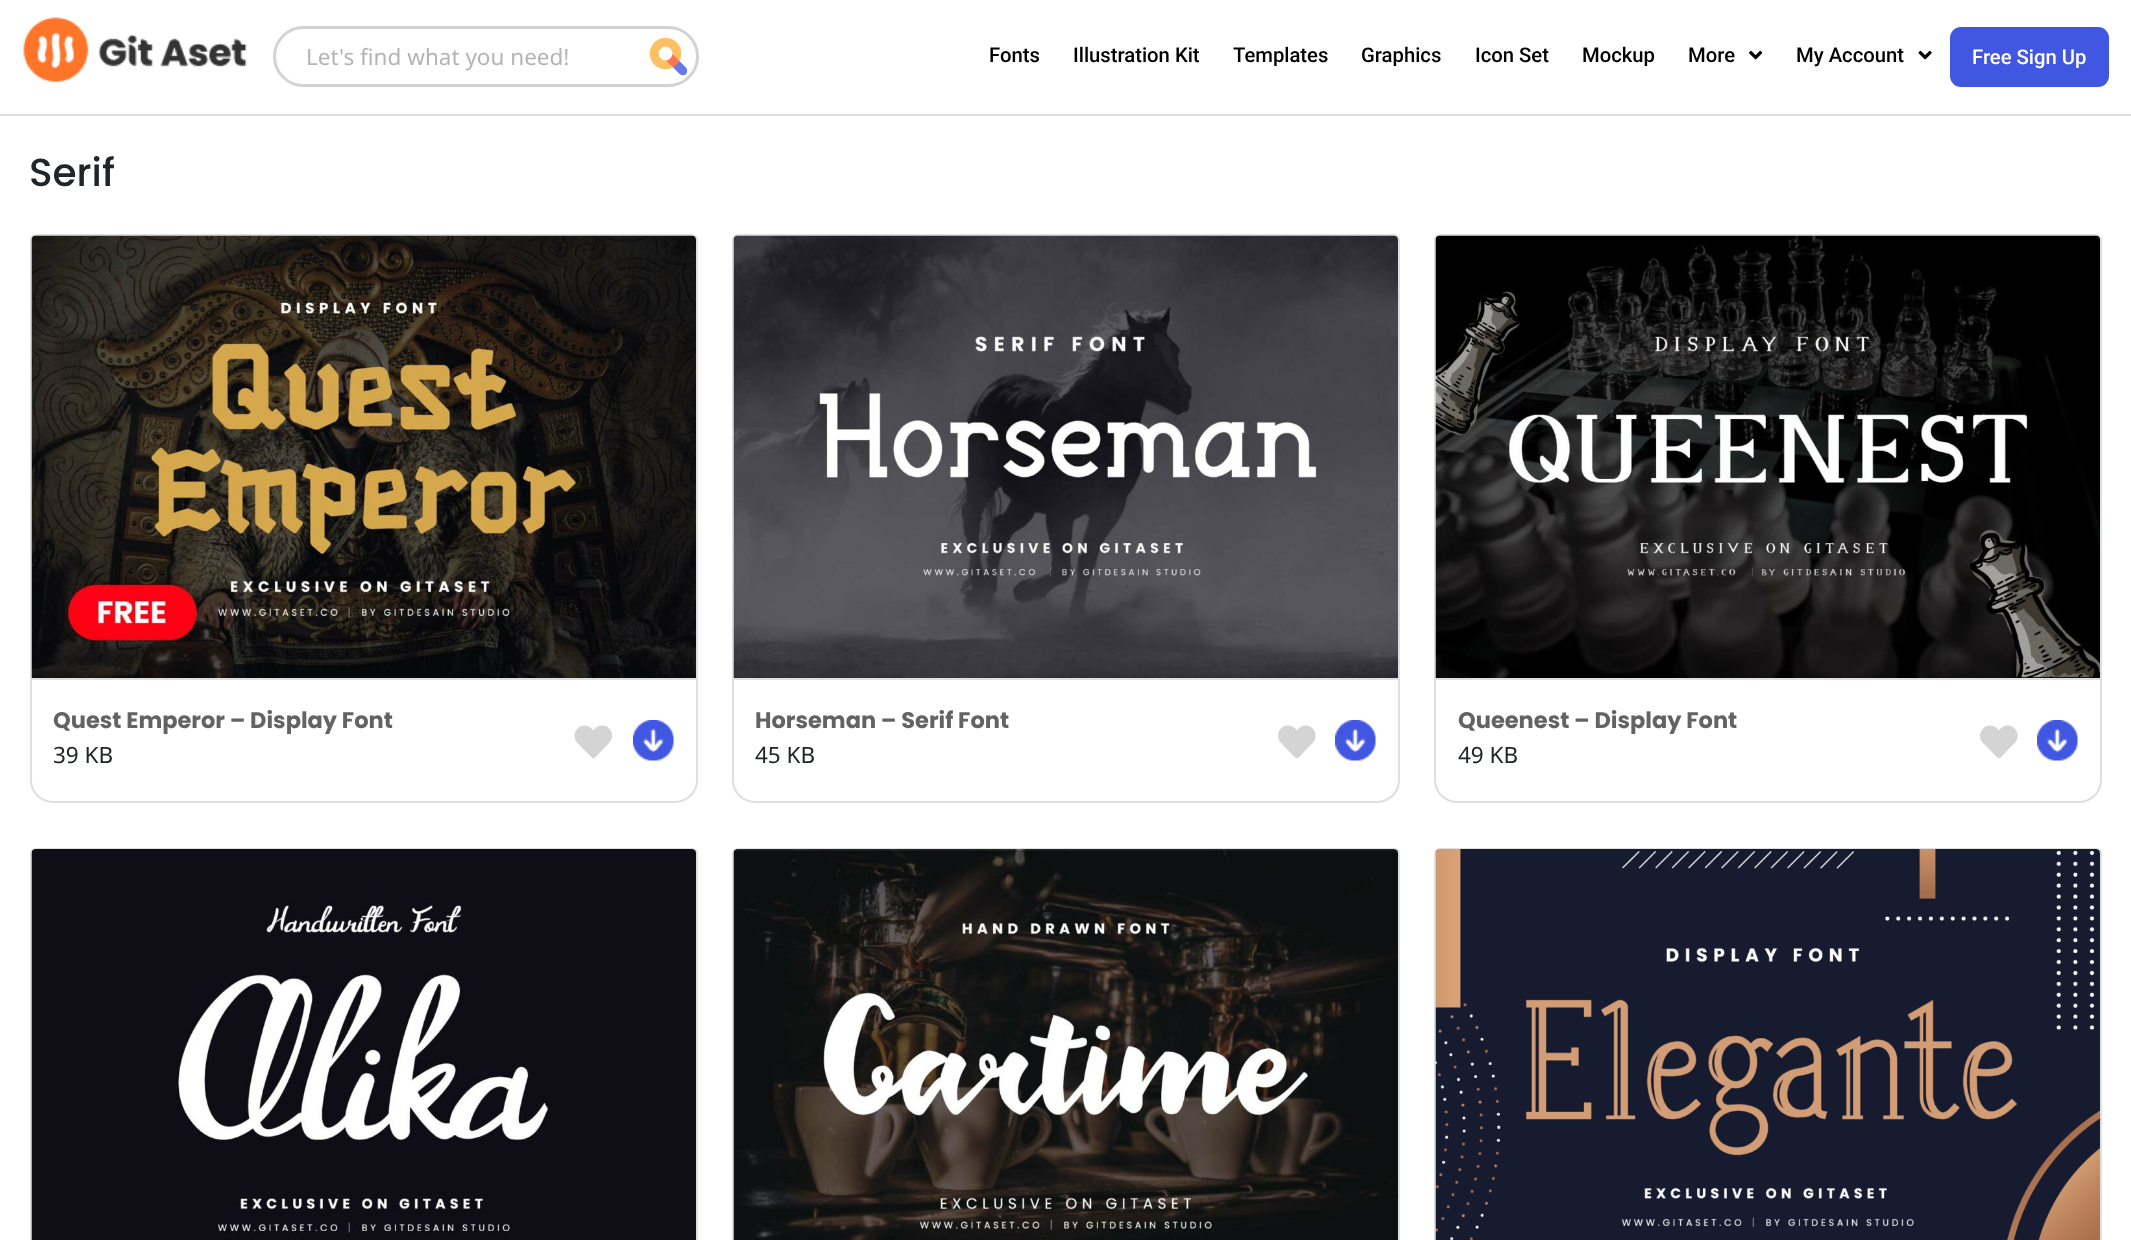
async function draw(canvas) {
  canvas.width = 2131
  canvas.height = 1240
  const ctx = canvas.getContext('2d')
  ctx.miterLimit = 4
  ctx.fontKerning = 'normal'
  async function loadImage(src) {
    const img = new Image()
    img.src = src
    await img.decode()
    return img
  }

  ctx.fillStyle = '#fff'
  ctx.fillRect(0, 0, 2131, 1240)
  ctx.fillStyle = '#dedede'
  ctx.fillRect(0, 114, 2131, 2)
  ctx.drawImage(await loadImage('image0.png'), 23, 17, 224, 65)
  ctx.beginPath()
  ctx.roundRect(274.5, 27.5, 423, 58, 29)
  ctx.strokeStyle = '#d3d3d3'
  ctx.lineWidth = 3
  ctx.stroke()
  ctx.font = '22.5px Noto Sans'
  ctx.fillStyle = '#b4b4b4'
  ctx.fillText('Let\'s find what you need!', 306, 65)
  ctx.drawImage(await loadImage('image1.png'), 649, 37, 38, 38)
  ctx.font = '500 20.25px Roboto'
  ctx.fillStyle = '#000'
  ctx.fillText('Fonts', 989, 62)
  ctx.fillText('Illustration Kit', 1073, 62)
  ctx.fillText('Templates', 1233, 62)
  ctx.fillText('Graphics', 1361, 62)
  ctx.fillText('Icon Set', 1475, 62)
  ctx.fillText('Mockup', 1582, 62)
  ctx.fillText('More', 1688, 62)
  ctx.drawImage(await loadImage('image2.png'), 1749, 50, 14, 10)
  ctx.fillText('My Account', 1796, 62)
  ctx.drawImage(await loadImage('image3.png'), 1918, 50, 14, 10)
  ctx.fillStyle = '#4257e1'
  ctx.beginPath()
  ctx.roundRect(1950, 27, 159, 60, 11)
  ctx.fill()
  ctx.fillStyle = '#fff'
  ctx.fillText('Free Sign Up', 1972, 64)
  ctx.font = '500 39px Poppins'
  ctx.fillStyle = '#212529'
  ctx.fillText('Serif', 29, 186)
  ctx.beginPath()
  ctx.roundRect(31, 235, 666, 567, [5, 5, 22, 22])
  ctx.strokeStyle = '#dfdfdf'
  ctx.lineWidth = 2
  ctx.stroke()
  ctx.drawImage(await loadImage('image4.png'), 31, 235, 665, 443)
  ctx.fillStyle = '#dfdfdf'
  ctx.fillRect(32, 678, 664, 2)
  ctx.font = 'bold 22.5px Poppins'
  ctx.fillStyle = '#636363'
  ctx.fillText('Quest Emperor – Display Font', 53, 728)
  ctx.font = '22.5px Noto Sans'
  ctx.fillStyle = '#212529'
  ctx.fillText('39 KB', 53, 763)
  ctx.drawImage(await loadImage('image5.png'), 574, 725, 38, 34)
  ctx.drawImage(await loadImage('image6.png'), 633, 720, 41, 41)
  ctx.beginPath()
  ctx.roundRect(733, 235, 666, 567, [5, 5, 22, 22])
  ctx.stroke()
  ctx.drawImage(await loadImage('image7.png'), 733, 235, 665, 443)
  ctx.fillStyle = '#dfdfdf'
  ctx.fillRect(734, 678, 664, 2)
  ctx.font = 'bold 22.5px Poppins'
  ctx.fillStyle = '#636363'
  ctx.fillText('Horseman – Serif Font', 755, 728)
  ctx.font = '22.5px Noto Sans'
  ctx.fillStyle = '#212529'
  ctx.fillText('45 KB', 755, 763)
  ctx.drawImage(await loadImage('image8.png'), 1278, 725, 38, 34)
  ctx.drawImage(await loadImage('image6.png'), 1335, 720, 41, 41)
  ctx.beginPath()
  ctx.roundRect(1435, 235, 666, 567, [5, 5, 22, 22])
  ctx.stroke()
  ctx.drawImage(await loadImage('image9.png'), 1435, 235, 665, 443)
  ctx.fillStyle = '#dfdfdf'
  ctx.fillRect(1436, 678, 664, 2)
  ctx.font = 'bold 22.5px Poppins'
  ctx.fillStyle = '#636363'
  ctx.fillText('Queenest – Display Font', 1458, 728)
  ctx.font = '22.5px Noto Sans'
  ctx.fillStyle = '#212529'
  ctx.fillText('49 KB', 1458, 763)
  ctx.drawImage(await loadImage('image8.png'), 1980, 725, 38, 34)
  ctx.drawImage(await loadImage('image6.png'), 2037, 720, 41, 41)
  ctx.beginPath()
  ctx.moveTo(36, 849)
  ctx.lineTo(692, 849)
  ctx.bezierCurveTo(695, 849, 697, 851, 697, 854)
  ctx.lineTo(697, 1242)
  ctx.bezierCurveTo(697, 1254, 687, 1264, 675, 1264)
  ctx.lineTo(53, 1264)
  ctx.bezierCurveTo(41, 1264, 31, 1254, 31, 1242)
  ctx.lineTo(31, 854)
  ctx.bezierCurveTo(31, 851, 33, 849, 36, 849)
  ctx.closePath()
  ctx.stroke()
  ctx.drawImage(await loadImage('image10.png'), 31, 849, 665, 391)
  ctx.beginPath()
  ctx.moveTo(738, 849)
  ctx.lineTo(1394, 849)
  ctx.bezierCurveTo(1397, 849, 1399, 851, 1399, 854)
  ctx.lineTo(1399, 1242)
  ctx.bezierCurveTo(1399, 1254, 1389, 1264, 1377, 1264)
  ctx.lineTo(755, 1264)
  ctx.bezierCurveTo(743, 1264, 733, 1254, 733, 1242)
  ctx.lineTo(733, 854)
  ctx.bezierCurveTo(733, 851, 735, 849, 738, 849)
  ctx.closePath()
  ctx.stroke()
  ctx.drawImage(await loadImage('image11.png'), 733, 849, 665, 391)
  ctx.beginPath()
  ctx.moveTo(1440, 849)
  ctx.lineTo(2096, 849)
  ctx.bezierCurveTo(2099, 849, 2101, 851, 2101, 854)
  ctx.lineTo(2101, 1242)
  ctx.bezierCurveTo(2101, 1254, 2091, 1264, 2079, 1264)
  ctx.lineTo(1457, 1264)
  ctx.bezierCurveTo(1445, 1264, 1435, 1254, 1435, 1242)
  ctx.lineTo(1435, 854)
  ctx.bezierCurveTo(1435, 851, 1437, 849, 1440, 849)
  ctx.closePath()
  ctx.stroke()
  ctx.drawImage(await loadImage('image12.png'), 1435, 849, 665, 391)
}

draw(document.querySelector('canvas'))
